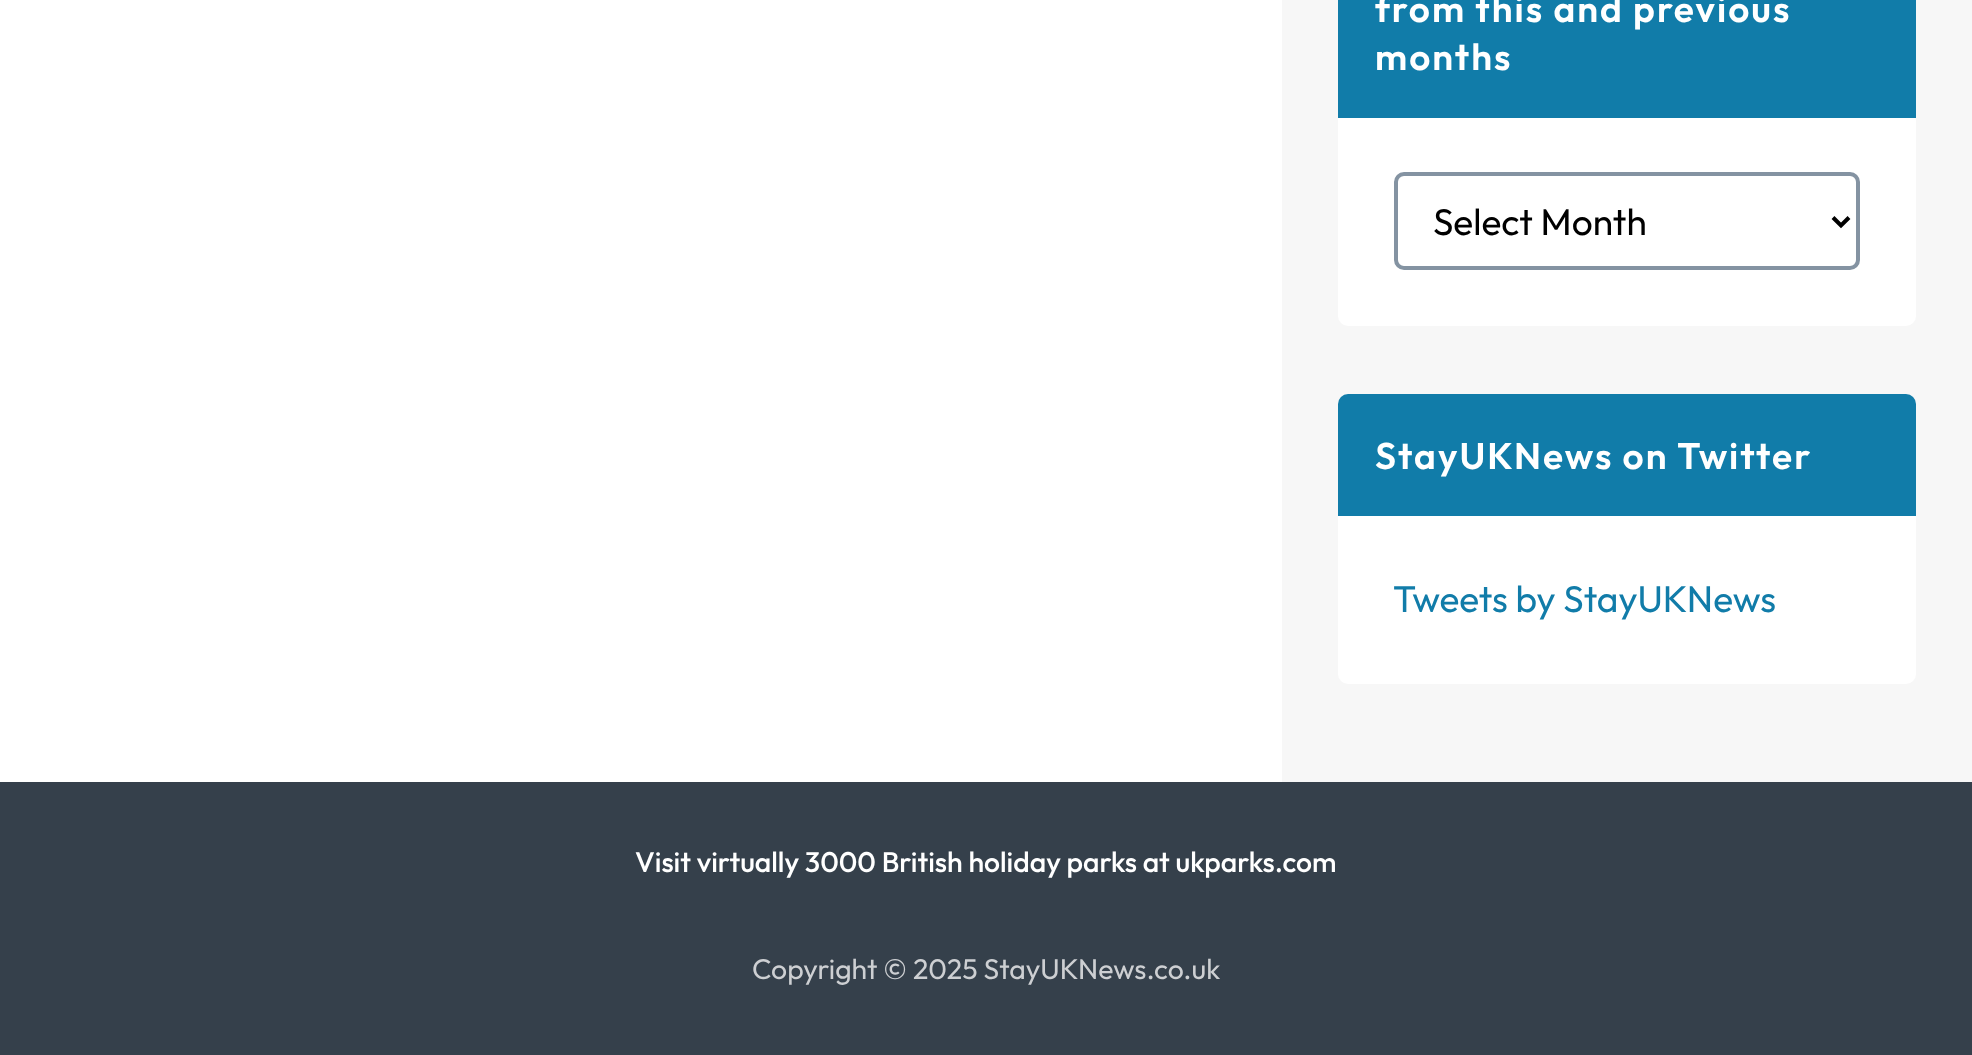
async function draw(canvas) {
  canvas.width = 1972
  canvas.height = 1055
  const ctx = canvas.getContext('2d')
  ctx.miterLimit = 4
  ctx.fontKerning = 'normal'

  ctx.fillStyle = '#fff'
  ctx.fillRect(0, 0, 1972, 1055)
  ctx.fillStyle = '#f7f7f7'
  ctx.fillRect(1282, 0, 690, 782)
  ctx.fillStyle = '#117ca9'
  ctx.fillRect(1338, 0, 578, 118)
  ctx.letterSpacing = '2px'
  ctx.font = '600 37.1px Outfit'
  ctx.fillStyle = '#fff'
  ctx.fillText('from this and previous', 1375, 22)
  ctx.fillText('months', 1375, 70)
  ctx.beginPath()
  ctx.roundRect(1338, 118, 578, 208, [0, 0, 10, 10])
  ctx.fill()
  ctx.beginPath()
  ctx.roundRect(1396, 174, 462, 94, 8)
  ctx.strokeStyle = '#8493a2'
  ctx.lineWidth = 4
  ctx.stroke()
  ctx.beginPath()
  ctx.moveTo(1833, 217.5)
  ctx.lineTo(1841, 225.5)
  ctx.lineTo(1849, 217.5)
  ctx.strokeStyle = '#000'
  ctx.stroke()
  ctx.letterSpacing = '0px'
  ctx.font = '37.1px Outfit'
  ctx.fillStyle = '#000'
  ctx.fillText('Select Month', 1433, 235)
  ctx.fillStyle = '#117ca9'
  ctx.beginPath()
  ctx.roundRect(1338, 394, 578, 122, [10, 10, 0, 0])
  ctx.fill()
  ctx.letterSpacing = '2px'
  ctx.font = '600 37.1px Outfit'
  ctx.fillStyle = '#fff'
  ctx.fillText('StayUKNews on Twitter', 1375, 469)
  ctx.beginPath()
  ctx.roundRect(1338, 516, 578, 168, [0, 0, 10, 10])
  ctx.fill()
  ctx.letterSpacing = '0px'
  ctx.font = '37.1px Outfit'
  ctx.fillStyle = '#117ca9'
  ctx.fillText('Tweets by StayUKNews', 1393, 612)
  ctx.fillStyle = '#35404b'
  ctx.fillRect(0, 782, 1972, 273)
  ctx.font = '500 28.4px Outfit'
  ctx.fillStyle = '#fff'
  ctx.fillText('Visit virtually 3000 British holiday parks at ukparks.com', 635, 872)
  ctx.font = '28.4px Outfit'
  ctx.fillStyle = '#cdcfd2'
  ctx.fillText('Copyright © 2025 StayUKNews.co.uk', 752, 979)
}

draw(document.querySelector('canvas'))
